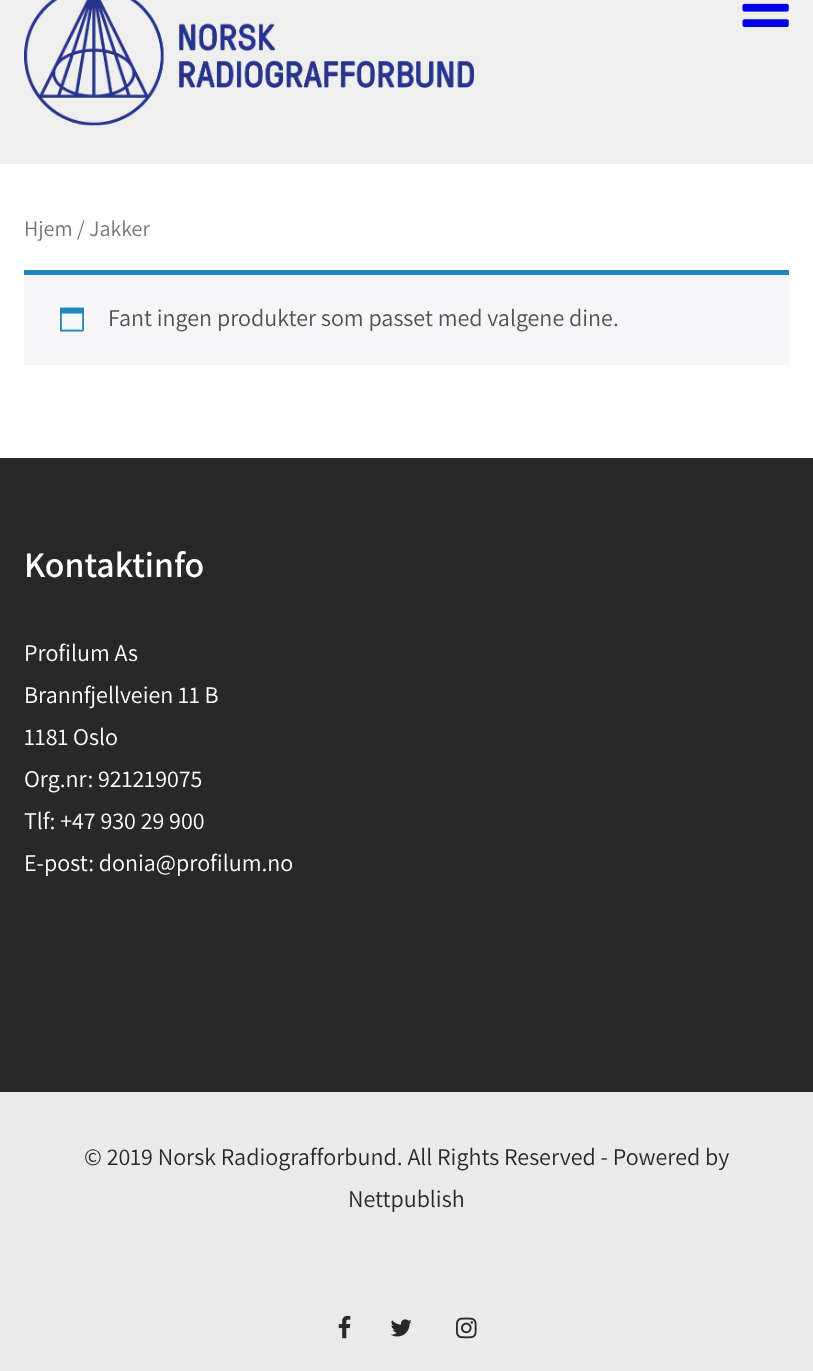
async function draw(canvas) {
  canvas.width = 813
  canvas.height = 1371
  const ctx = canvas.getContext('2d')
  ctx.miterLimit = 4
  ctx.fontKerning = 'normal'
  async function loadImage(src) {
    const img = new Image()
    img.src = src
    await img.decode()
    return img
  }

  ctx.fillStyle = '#fff'
  ctx.fillRect(0, 0, 813, 1371)
  ctx.fillStyle = '#efefef'
  ctx.fillRect(0, 0, 813, 164)
  ctx.drawImage(await loadImage('image0.png'), 24, 0, 450, 126)
  ctx.drawImage(await loadImage('image1.png'), 742, 3, 47, 24)
  ctx.font = '22px Assistant'
  ctx.fillStyle = '#767676'
  ctx.fillText('Hjem / Jakker', 24, 236)
  ctx.fillStyle = '#f6f5f8'
  ctx.fillRect(24, 275, 765, 90)
  ctx.fillStyle = '#1e85be'
  ctx.fillRect(24, 270, 765, 5)
  ctx.drawImage(await loadImage('image2.png'), 60, 307, 24, 25)
  ctx.font = '24px Assistant'
  ctx.fillStyle = '#515151'
  ctx.fillText('Fant ingen produkter som passet med valgene dine.', 108, 326)
  ctx.fillStyle = '#282828'
  ctx.fillRect(0, 458, 813, 634)
  ctx.font = '600 36px Assistant'
  ctx.fillStyle = '#fff'
  ctx.fillText('Kontaktinfo', 24, 577)
  ctx.font = '24px Assistant'
  ctx.fillText('Profilum As', 24, 661)
  ctx.fillText('Brannfjellveien 11 B', 24, 703)
  ctx.fillText('1181 Oslo', 24, 745)
  ctx.fillText('Org.nr: 921219075', 24, 787)
  ctx.fillText('Tlf: +47 930 29 900', 24, 829)
  ctx.fillText('E-post: donia@profilum.no', 24, 871)
  ctx.fillStyle = '#eaeaea'
  ctx.fillRect(0, 1092, 813, 279)
  ctx.fillStyle = '#282828'
  ctx.fillText('© 2019 Norsk Radiografforbund. All Rights Reserved - Powered by', 84, 1165)
  ctx.fillText('Nettpublish', 348, 1207)
  ctx.drawImage(await loadImage('image3.png'), 338, 1315, 13, 24)
  ctx.drawImage(await loadImage('image4.png'), 390, 1319, 22, 18)
  ctx.drawImage(await loadImage('image5.png'), 456, 1317, 21, 22)
}

draw(document.querySelector('canvas'))
